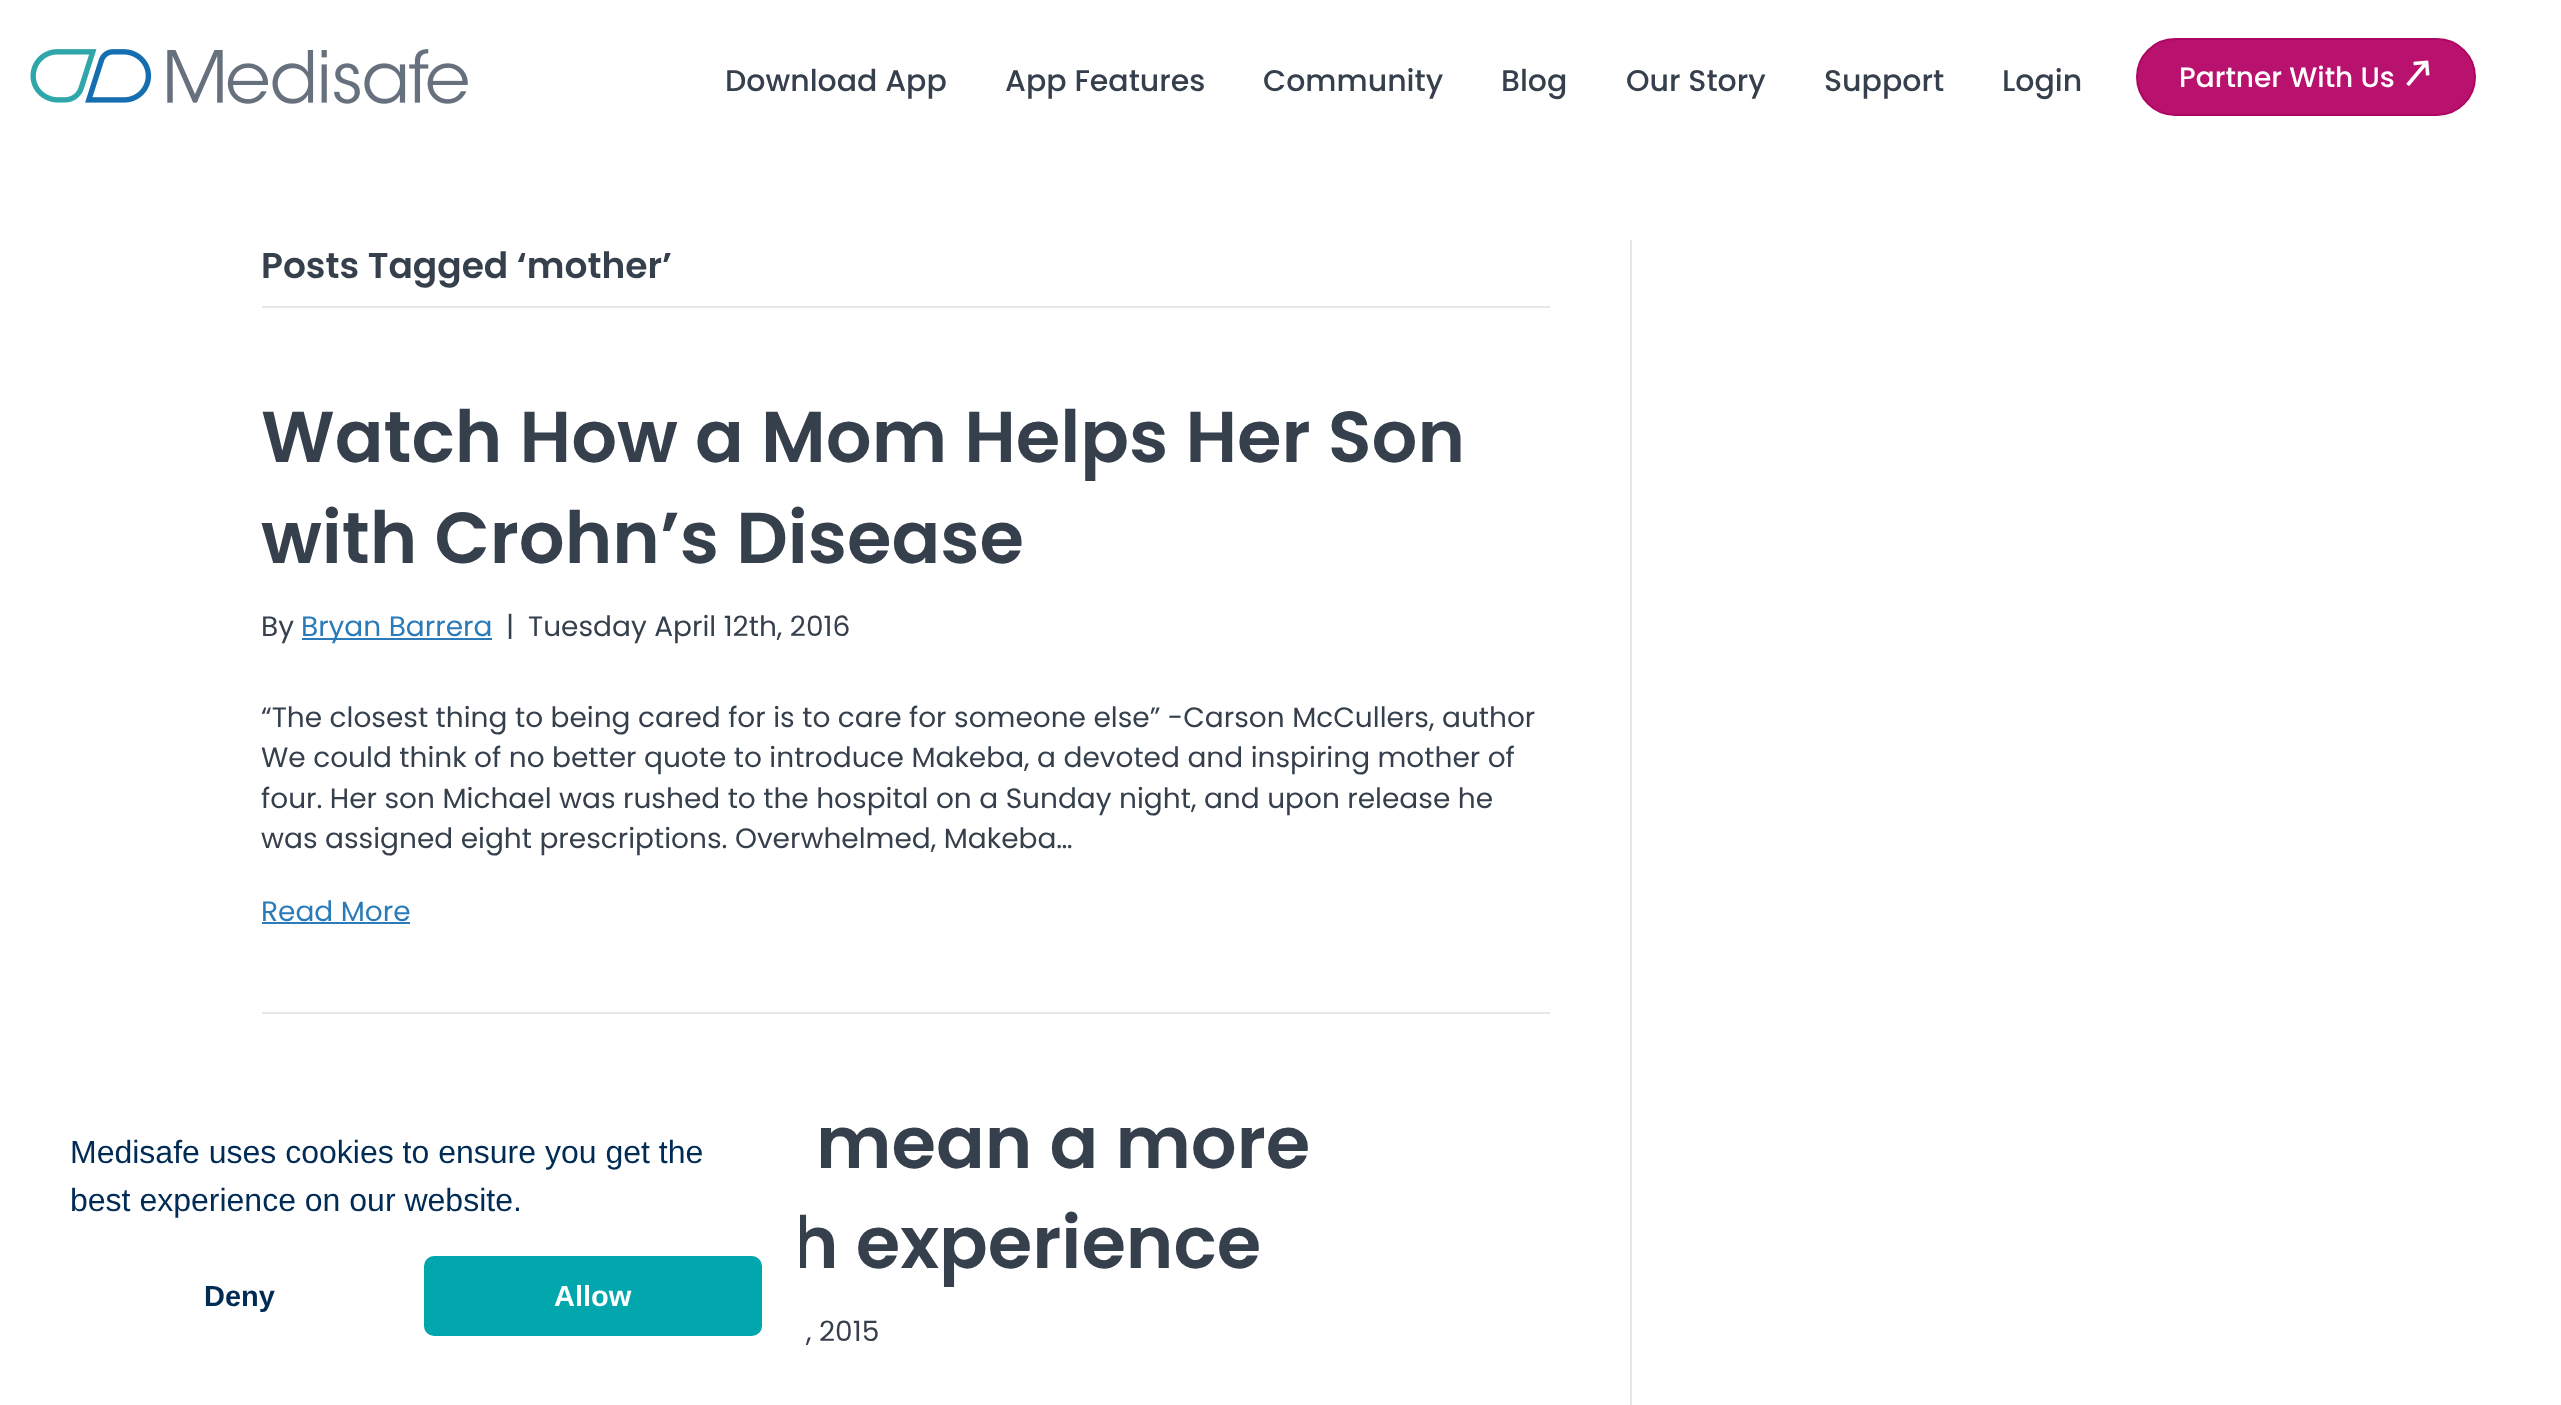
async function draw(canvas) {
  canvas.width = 2561
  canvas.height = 1405
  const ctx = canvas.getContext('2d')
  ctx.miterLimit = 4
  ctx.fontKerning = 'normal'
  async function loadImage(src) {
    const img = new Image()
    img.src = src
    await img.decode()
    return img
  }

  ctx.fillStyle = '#fff'
  ctx.fillRect(0, 0, 2561, 1405)
  ctx.drawImage(await loadImage('image0.png'), 30, 49, 438, 55)
  ctx.font = '500 30px Poppins'
  ctx.fillStyle = '#36404d'
  ctx.fillText('Download App', 725, 91)
  ctx.fillText('App Features', 1005, 91)
  ctx.fillText('Community', 1263, 91)
  ctx.fillText('Blog', 1501, 91)
  ctx.fillText('Our Story', 1626, 91)
  ctx.fillText('Support', 1824, 91)
  ctx.fillText('Login', 2002, 91)
  ctx.fillStyle = '#b9126e'
  ctx.beginPath()
  ctx.roundRect(2137, 39, 338, 76, 38)
  ctx.fill()
  ctx.strokeStyle = '#ad0662'
  ctx.lineWidth = 2
  ctx.stroke()
  ctx.font = '500 28px Poppins'
  ctx.fillStyle = '#fff'
  ctx.fillText('Partner With Us', 2179, 87)
  ctx.drawImage(await loadImage('image1.png'), 2406, 60, 24, 26)
  ctx.fillStyle = '#e6e6e6'
  ctx.fillRect(1630, 240, 2, 1165)
  ctx.fillRect(262, 306, 1288, 2)
  ctx.font = '600 36px Poppins'
  ctx.fillStyle = '#36404d'
  ctx.fillText('Posts Tagged ‘mother’', 261, 278)
  ctx.fillStyle = '#e6e6e6'
  ctx.fillRect(262, 1012, 1288, 2)
  ctx.font = '600 72px Poppins'
  ctx.fillStyle = '#36404d'
  ctx.fillText('Watch How a Mom Helps Her Son', 261, 462)
  ctx.fillText('with Crohn’s Disease', 261, 563)
  ctx.font = '28px Poppins'
  ctx.fillText('By', 261, 636)
  ctx.fillStyle = '#2b7bb9'
  ctx.fillRect(302, 638, 190, 2)
  ctx.fillText('Bryan Barrera', 301, 636)
  ctx.fillStyle = '#36404d'
  ctx.fillText('|', 506, 636)
  ctx.fillText('Tuesday April 12th, 2016', 528, 636)
  ctx.fillText('“The closest thing to being cared for is to care for someone else” -Carson McCullers, author', 261, 727)
  ctx.fillText('We could think of no better quote to introduce Makeba, a devoted and inspiring mother of', 261, 767)
  ctx.fillText('four. Her son Michael was rushed to the hospital on a Sunday night, and upon release he', 261, 808)
  ctx.fillText('was assigned eight prescriptions. Overwhelmed, Makeba…', 261, 848)
  ctx.fillStyle = '#2b7bb9'
  ctx.fillText('Read More', 261, 921)
  ctx.fillRect(262, 922, 148, 2)
  ctx.font = '600 72px Poppins'
  ctx.fillStyle = '#36404d'
  ctx.fillText('mean a more', 816, 1168)
  ctx.fillText('h experience', 791, 1268)
  ctx.font = '28px Poppins'
  ctx.fillText(', 2015', 806, 1341)
  ctx.fillStyle = '#fff'
  ctx.beginPath()
  ctx.roundRect(32, 1090, 768, 284, 10)
  ctx.fill()
  ctx.font = '32px Liberation Sans'
  ctx.fillStyle = '#002b54'
  ctx.fillText('Medisafe uses cookies to ensure you get the', 70, 1163)
  ctx.fillText('best experience on our website.', 70, 1211)
  ctx.font = 'bold 29px Liberation Sans'
  ctx.fillText('Deny', 204, 1306)
  ctx.fillStyle = '#01a7ad'
  ctx.beginPath()
  ctx.roundRect(424, 1256, 338, 80, 10)
  ctx.fill()
  ctx.fillStyle = '#fff'
  ctx.fillText('Allow', 554, 1306)
}

draw(document.querySelector('canvas'))
